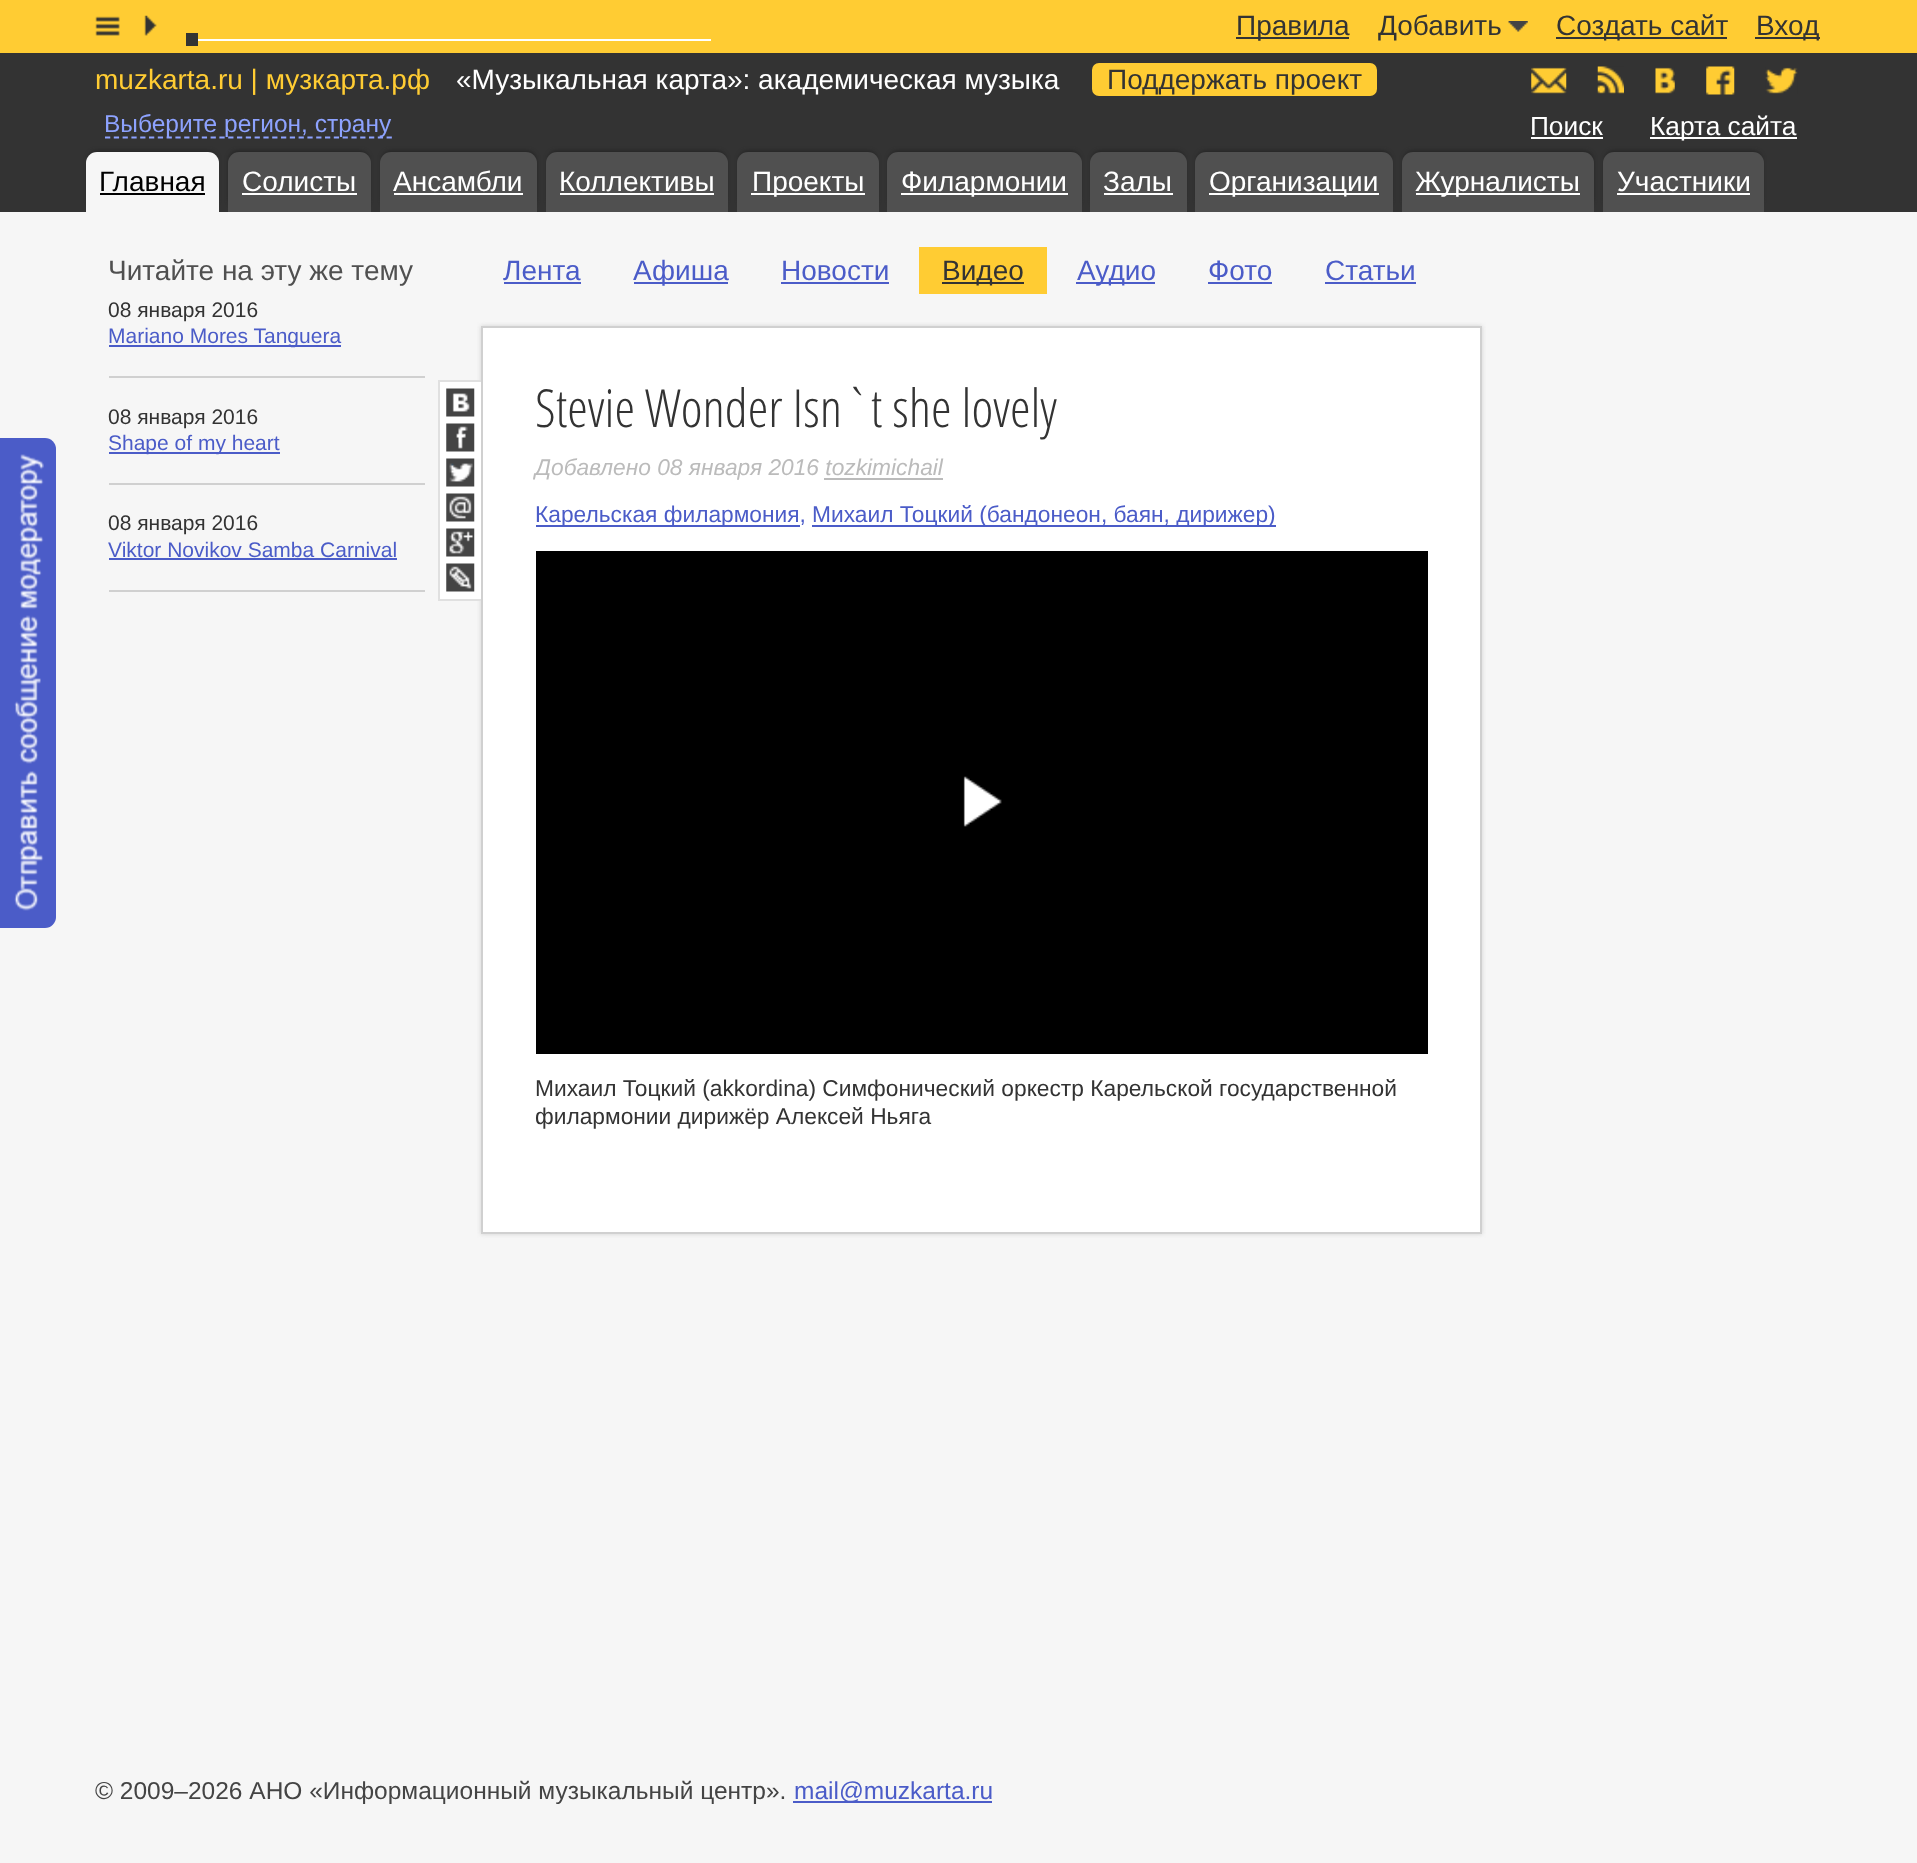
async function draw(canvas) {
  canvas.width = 1917
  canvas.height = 1863
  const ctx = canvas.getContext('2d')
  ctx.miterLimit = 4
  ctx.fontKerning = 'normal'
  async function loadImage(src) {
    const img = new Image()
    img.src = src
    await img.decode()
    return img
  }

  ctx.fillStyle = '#f6f6f6'
  ctx.fillRect(0, 0, 1917, 1863)
  ctx.fillStyle = '#4b5cc8'
  ctx.beginPath()
  ctx.roundRect(0, 438, 56, 490, [0, 11, 11, 0])
  ctx.fill()
  ctx.drawImage(await loadImage('image0.png'), 14, 454, 30, 457)
  ctx.fillStyle = '#fc3'
  ctx.fillRect(0, 0, 1917, 53)
  ctx.drawImage(await loadImage('image1.png'), 95, 16, 25, 20)
  ctx.drawImage(await loadImage('image2.png'), 144, 15, 13, 21)
  ctx.fillStyle = '#333'
  ctx.fillRect(1236, 37, 113, 2)
  ctx.font = '28px Liberation Sans'
  ctx.fillText('Правила', 1236, 35)
  ctx.fillText('Добавить', 1378, 35)
  ctx.drawImage(await loadImage('image3.png'), 1508, 21, 20, 11)
  ctx.fillRect(1556, 37, 171, 2)
  ctx.fillText('Создать сайт', 1556, 35)
  ctx.fillRect(1755, 37, 65, 2)
  ctx.fillText('Вход', 1756, 35)
  ctx.fillRect(186, 33, 12, 13)
  ctx.fillStyle = '#fff'
  ctx.fillRect(198, 39, 513, 2)
  ctx.fillStyle = '#333'
  ctx.fillRect(0, 53, 1917, 159)
  ctx.fillStyle = '#fc3'
  ctx.fillText('muzkarta.ru | музкарта.рф', 95, 89)
  ctx.fillStyle = '#fff'
  ctx.fillText('«Музыкальная карта»: академическая музыка', 456, 89)
  ctx.fillStyle = '#fc3'
  ctx.beginPath()
  ctx.roundRect(1093, 64, 283, 31, 6)
  ctx.fill()
  ctx.strokeStyle = '#fc3'
  ctx.lineWidth = 2
  ctx.stroke()
  ctx.fillStyle = '#333'
  ctx.fillText('Поддержать проект', 1107, 89)
  ctx.drawImage(await loadImage('image4.png'), 1531, 67, 36, 27)
  ctx.drawImage(await loadImage('image5.png'), 1597, 66, 27, 28)
  ctx.drawImage(await loadImage('image6.png'), 1655, 67, 20, 27)
  ctx.drawImage(await loadImage('image7.png'), 1706, 66, 29, 29)
  ctx.drawImage(await loadImage('image8.png'), 1765, 67, 33, 27)
  ctx.beginPath()
  ctx.moveTo(105, 137.5)
  ctx.lineTo(392, 137.5)
  ctx.strokeStyle = '#8da2fe'
  ctx.lineWidth = 1.8
  ctx.setLineDash([5.25, 3.55])
  ctx.stroke()
  ctx.font = '24.5px Liberation Sans'
  ctx.fillStyle = '#8da2fe'
  ctx.fillText('Выберите регион, страну', 104, 132)
  ctx.font = '26.25px Liberation Sans'
  ctx.fillStyle = '#fff'
  ctx.fillText('Поиск', 1530, 135)
  ctx.fillRect(1531, 137, 72, 2)
  ctx.fillRect(1650, 137, 147, 2)
  ctx.fillText('Карта сайта', 1650, 135)
  ctx.fillStyle = '#222'
  ctx.filter = 'blur(2px)'
  ctx.beginPath()
  ctx.roundRect(88, 151, 129, 56, 9)
  ctx.fill()
  ctx.filter = 'none'
  ctx.fillStyle = '#f6f6f6'
  ctx.beginPath()
  ctx.roundRect(86, 152, 133, 60, [11, 11, 0, 0])
  ctx.fill()
  ctx.font = '28px Liberation Sans'
  ctx.fillStyle = '#000'
  ctx.fillText('Главная', 99, 191)
  ctx.fillRect(100, 193, 105, 2)
  ctx.fillStyle = '#222'
  ctx.filter = 'blur(2px)'
  ctx.beginPath()
  ctx.roundRect(229, 151, 140, 56, 9)
  ctx.fill()
  ctx.filter = 'none'
  ctx.fillStyle = '#505050'
  ctx.beginPath()
  ctx.roundRect(228, 152, 143, 60, [11, 11, 0, 0])
  ctx.fill()
  ctx.fillStyle = '#fff'
  ctx.fillText('Солисты', 242, 191)
  ctx.fillRect(242, 193, 115, 2)
  ctx.fillStyle = '#222'
  ctx.filter = 'blur(2px)'
  ctx.beginPath()
  ctx.roundRect(382, 151, 154, 56, 9)
  ctx.fill()
  ctx.filter = 'none'
  ctx.fillStyle = '#505050'
  ctx.beginPath()
  ctx.roundRect(380, 152, 157, 60, [11, 11, 0, 0])
  ctx.fill()
  ctx.fillStyle = '#fff'
  ctx.fillText('Ансамбли', 393, 191)
  ctx.fillRect(394, 193, 129, 2)
  ctx.fillStyle = '#222'
  ctx.filter = 'blur(2px)'
  ctx.beginPath()
  ctx.roundRect(548, 151, 178, 56, 9)
  ctx.fill()
  ctx.filter = 'none'
  ctx.fillStyle = '#505050'
  ctx.beginPath()
  ctx.roundRect(546, 152, 182, 60, [11, 11, 0, 0])
  ctx.fill()
  ctx.fillStyle = '#fff'
  ctx.fillText('Коллективы', 559, 191)
  ctx.fillRect(560, 193, 154, 2)
  ctx.fillStyle = '#222'
  ctx.filter = 'blur(2px)'
  ctx.beginPath()
  ctx.roundRect(739, 151, 138, 56, 9)
  ctx.fill()
  ctx.filter = 'none'
  ctx.fillStyle = '#505050'
  ctx.beginPath()
  ctx.roundRect(737, 152, 142, 60, [11, 11, 0, 0])
  ctx.fill()
  ctx.fillStyle = '#fff'
  ctx.fillRect(751, 193, 114, 2)
  ctx.fillText('Проекты', 752, 191)
  ctx.fillStyle = '#222'
  ctx.filter = 'blur(2px)'
  ctx.beginPath()
  ctx.roundRect(889, 151, 191, 56, 9)
  ctx.fill()
  ctx.filter = 'none'
  ctx.fillStyle = '#505050'
  ctx.beginPath()
  ctx.roundRect(887, 152, 195, 60, [11, 11, 0, 0])
  ctx.fill()
  ctx.fillStyle = '#fff'
  ctx.fillRect(901, 193, 167, 2)
  ctx.fillText('Филармонии', 901, 191)
  ctx.fillStyle = '#222'
  ctx.filter = 'blur(2px)'
  ctx.beginPath()
  ctx.roundRect(1092, 151, 93, 56, 9)
  ctx.fill()
  ctx.filter = 'none'
  ctx.fillStyle = '#505050'
  ctx.beginPath()
  ctx.roundRect(1090, 152, 97, 60, [11, 11, 0, 0])
  ctx.fill()
  ctx.fillStyle = '#fff'
  ctx.fillText('Залы', 1103, 191)
  ctx.fillRect(1104, 193, 69, 2)
  ctx.fillStyle = '#222'
  ctx.filter = 'blur(2px)'
  ctx.beginPath()
  ctx.roundRect(1197, 151, 194, 56, 9)
  ctx.fill()
  ctx.filter = 'none'
  ctx.fillStyle = '#505050'
  ctx.beginPath()
  ctx.roundRect(1195, 152, 198, 60, [11, 11, 0, 0])
  ctx.fill()
  ctx.fillStyle = '#fff'
  ctx.fillRect(1209, 193, 170, 2)
  ctx.fillText('Организации', 1209, 191)
  ctx.fillStyle = '#222'
  ctx.filter = 'blur(2px)'
  ctx.beginPath()
  ctx.roundRect(1404, 151, 189, 56, 9)
  ctx.fill()
  ctx.filter = 'none'
  ctx.fillStyle = '#505050'
  ctx.beginPath()
  ctx.roundRect(1402, 152, 192, 60, [11, 11, 0, 0])
  ctx.fill()
  ctx.fillStyle = '#fff'
  ctx.fillRect(1416, 193, 164, 2)
  ctx.fillText('Журналисты', 1415, 191)
  ctx.fillStyle = '#222'
  ctx.filter = 'blur(2px)'
  ctx.beginPath()
  ctx.roundRect(1605, 151, 157, 56, 9)
  ctx.fill()
  ctx.filter = 'none'
  ctx.fillStyle = '#505050'
  ctx.beginPath()
  ctx.roundRect(1603, 152, 161, 60, [11, 11, 0, 0])
  ctx.fill()
  ctx.fillStyle = '#fff'
  ctx.fillText('Участники', 1617, 191)
  ctx.fillRect(1617, 193, 133, 2)
  ctx.fillStyle = '#505050'
  ctx.fillText('Читайте на эту же тему', 108, 280)
  ctx.font = '21px Liberation Sans'
  ctx.fillStyle = '#333'
  ctx.fillText('08 января 2016', 108, 317)
  ctx.fillStyle = '#4b5cc8'
  ctx.fillRect(109, 345, 232, 2)
  ctx.fillText('Mariano Mores Tanguera', 108, 343)
  ctx.fillStyle = '#d0d0d0'
  ctx.fillRect(109, 376, 316, 2)
  ctx.fillStyle = '#333'
  ctx.fillText('08 января 2016', 108, 424)
  ctx.fillStyle = '#4b5cc8'
  ctx.fillRect(109, 452, 171, 2)
  ctx.fillText('Shape of my heart', 108, 450)
  ctx.fillStyle = '#d0d0d0'
  ctx.fillRect(109, 483, 316, 2)
  ctx.fillStyle = '#333'
  ctx.fillText('08 января 2016', 108, 530)
  ctx.fillStyle = '#4b5cc8'
  ctx.fillText('Viktor Novikov Samba Carnival', 108, 557)
  ctx.fillRect(109, 558, 288, 2)
  ctx.fillStyle = '#d0d0d0'
  ctx.fillRect(109, 590, 316, 2)
  ctx.font = '28px Liberation Sans'
  ctx.fillStyle = '#4b5cc8'
  ctx.fillText('Лента', 503, 280)
  ctx.fillRect(504, 282, 77, 2)
  ctx.fillRect(634, 282, 94, 2)
  ctx.fillText('Афиша', 633, 280)
  ctx.fillText('Новости', 781, 280)
  ctx.fillRect(781, 282, 108, 2)
  ctx.fillStyle = '#fc3'
  ctx.fillRect(919, 247, 128, 47)
  ctx.fillStyle = '#333'
  ctx.fillRect(942, 282, 82, 2)
  ctx.fillText('Видео', 942, 280)
  ctx.fillStyle = '#4b5cc8'
  ctx.fillRect(1076, 282, 79, 2)
  ctx.fillText('Аудио', 1077, 280)
  ctx.fillText('Фото', 1208, 280)
  ctx.fillRect(1208, 282, 64, 2)
  ctx.fillText('Статьи', 1325, 280)
  ctx.fillRect(1325, 282, 91, 2)
  ctx.fillStyle = '#d0d0d0'
  ctx.filter = 'blur(2px)'
  ctx.beginPath()
  ctx.rect(481, 326, 1001, 908)
  ctx.fill()
  ctx.filter = 'none'
  ctx.fillStyle = '#fff'
  ctx.beginPath()
  ctx.rect(482, 327, 999, 906)
  ctx.fill()
  ctx.strokeStyle = '#d0d0d0'
  ctx.lineWidth = 2
  ctx.setLineDash([])
  ctx.stroke()
  ctx.fillRect(440, 382, 41, 217)
  ctx.fillStyle = '#e0e0e0'
  ctx.fillRect(438, 380, 43, 2)
  ctx.fillRect(438, 599, 43, 2)
  ctx.fillRect(438, 380, 2, 220)
  ctx.drawImage(await loadImage('image9.png'), 446, 388, 29, 29)
  ctx.drawImage(await loadImage('image10.png'), 446, 423, 29, 29)
  ctx.drawImage(await loadImage('image11.png'), 446, 458, 29, 29)
  ctx.drawImage(await loadImage('image12.png'), 446, 493, 29, 29)
  ctx.drawImage(await loadImage('image13.png'), 446, 528, 29, 29)
  ctx.drawImage(await loadImage('image14.png'), 446, 563, 29, 29)
  ctx.font = '300 52.5px Open Sans Condensed'
  ctx.fillStyle = '#333'
  ctx.fillText('Stevie Wonder Isn`t she lovely', 535, 427)
  ctx.font = 'italic 22.75px Liberation Sans'
  ctx.fillStyle = '#bbb'
  ctx.fillText('Добавлено 08 января 2016 tozkimichail', 535, 475)
  ctx.fillRect(824, 478, 119, 2)
  ctx.fillStyle = '#4b5cc8'
  ctx.fillRect(536, 525, 264, 2)
  ctx.font = '22.75px Liberation Sans'
  ctx.fillText('Карельская филармония,', 535, 522)
  ctx.fillRect(812, 525, 464, 2)
  ctx.fillText('Михаил Тоцкий (бандонеон, баян, дирижер)', 812, 522)
  ctx.fillStyle = '#000'
  ctx.fillRect(536, 551, 892, 503)
  ctx.drawImage(await loadImage('image15.png'), 963, 776, 39, 51)
  ctx.fillStyle = '#333'
  ctx.fillText('Михаил Тоцкий (akkordina) Симфонический оркестр Карельской государственной', 535, 1096)
  ctx.fillText('филармонии дирижёр Алексей Ньяга', 535, 1124)
  ctx.font = '24.5px Liberation Sans'
  ctx.fillStyle = '#444'
  ctx.fillText('© 2009–2026 АНО «Информационный музыкальный центр».', 95, 1799)
  ctx.fillStyle = '#4b5cc8'
  ctx.fillRect(793, 1801, 199, 2)
  ctx.fillText('mail@muzkarta.ru', 794, 1799)
}

draw(document.querySelector('canvas'))
